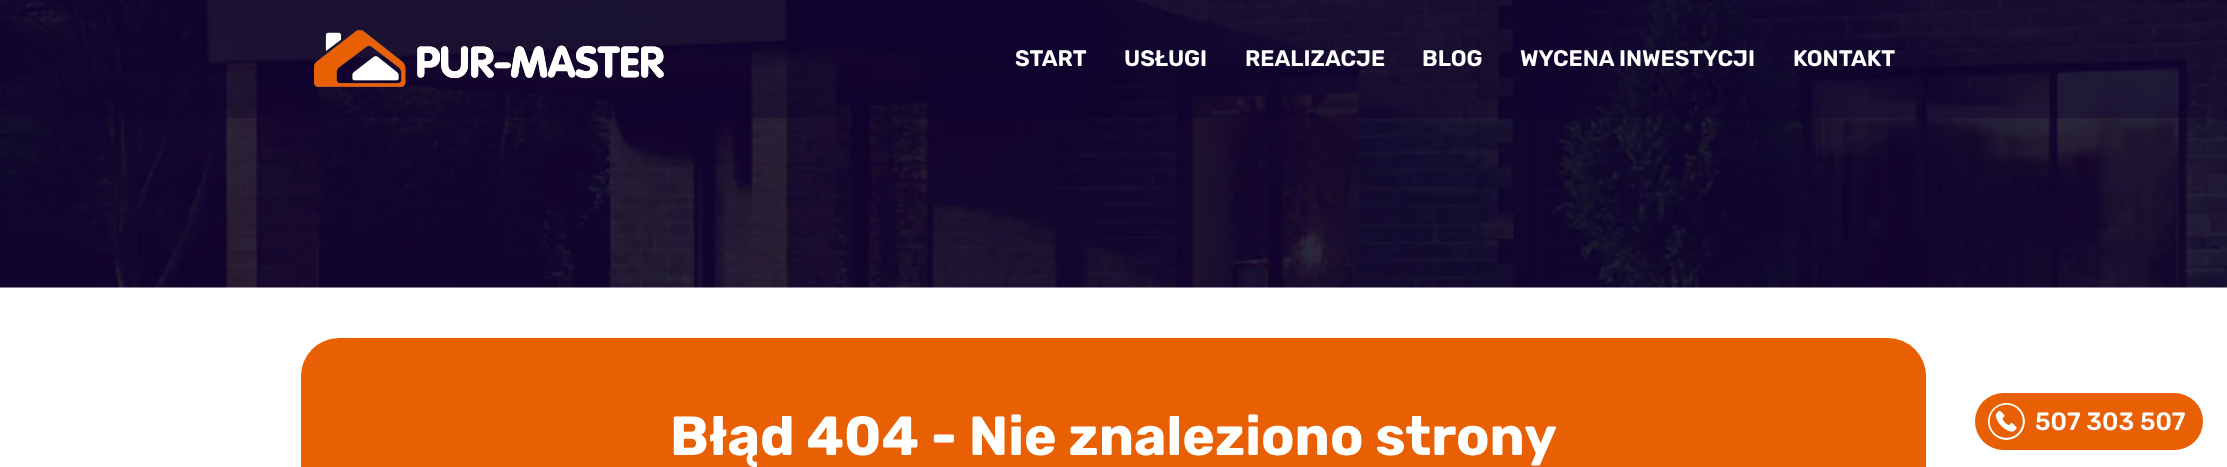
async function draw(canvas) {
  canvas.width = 2227
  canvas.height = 467
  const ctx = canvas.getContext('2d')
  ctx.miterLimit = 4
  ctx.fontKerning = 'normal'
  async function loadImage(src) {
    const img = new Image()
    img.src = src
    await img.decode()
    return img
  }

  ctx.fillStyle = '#fff'
  ctx.fillRect(0, 0, 2227, 467)
  ctx.drawImage(await loadImage('image0.png'), 0, 0, 2227, 288)
  ctx.fillStyle = '#10032d66'
  ctx.fillRect(0, 0, 2227, 118)
  ctx.drawImage(await loadImage('image1.png'), 314, 30, 350, 57)
  ctx.font = '600 22.5px Rubik'
  ctx.fillStyle = '#fff'
  ctx.fillText('START', 1015, 66)
  ctx.fillText('USŁUGI', 1124, 66)
  ctx.fillText('REALIZACJE', 1245, 66)
  ctx.fillText('BLOG', 1422, 66)
  ctx.fillText('WYCENA INWESTYCJI', 1520, 66)
  ctx.fillText('KONTAKT', 1793, 66)
  ctx.fillStyle = '#e86003'
  ctx.beginPath()
  ctx.roundRect(301, 338, 1625, 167, 38)
  ctx.fill()
  ctx.font = 'bold 55px Rubik'
  ctx.fillStyle = '#fff'
  ctx.fillText('Błąd 404 - Nie znaleziono strony', 670, 455)
  ctx.fillStyle = '#e86003'
  ctx.beginPath()
  ctx.roundRect(1975, 393, 228, 57, 28.5)
  ctx.fill()
  ctx.drawImage(await loadImage('image2.png'), 1988, 403, 37, 37)
  ctx.font = '500 25px Rubik'
  ctx.fillStyle = '#fff'
  ctx.fillText('507 303 507', 2035, 430)
}

draw(document.querySelector('canvas'))
